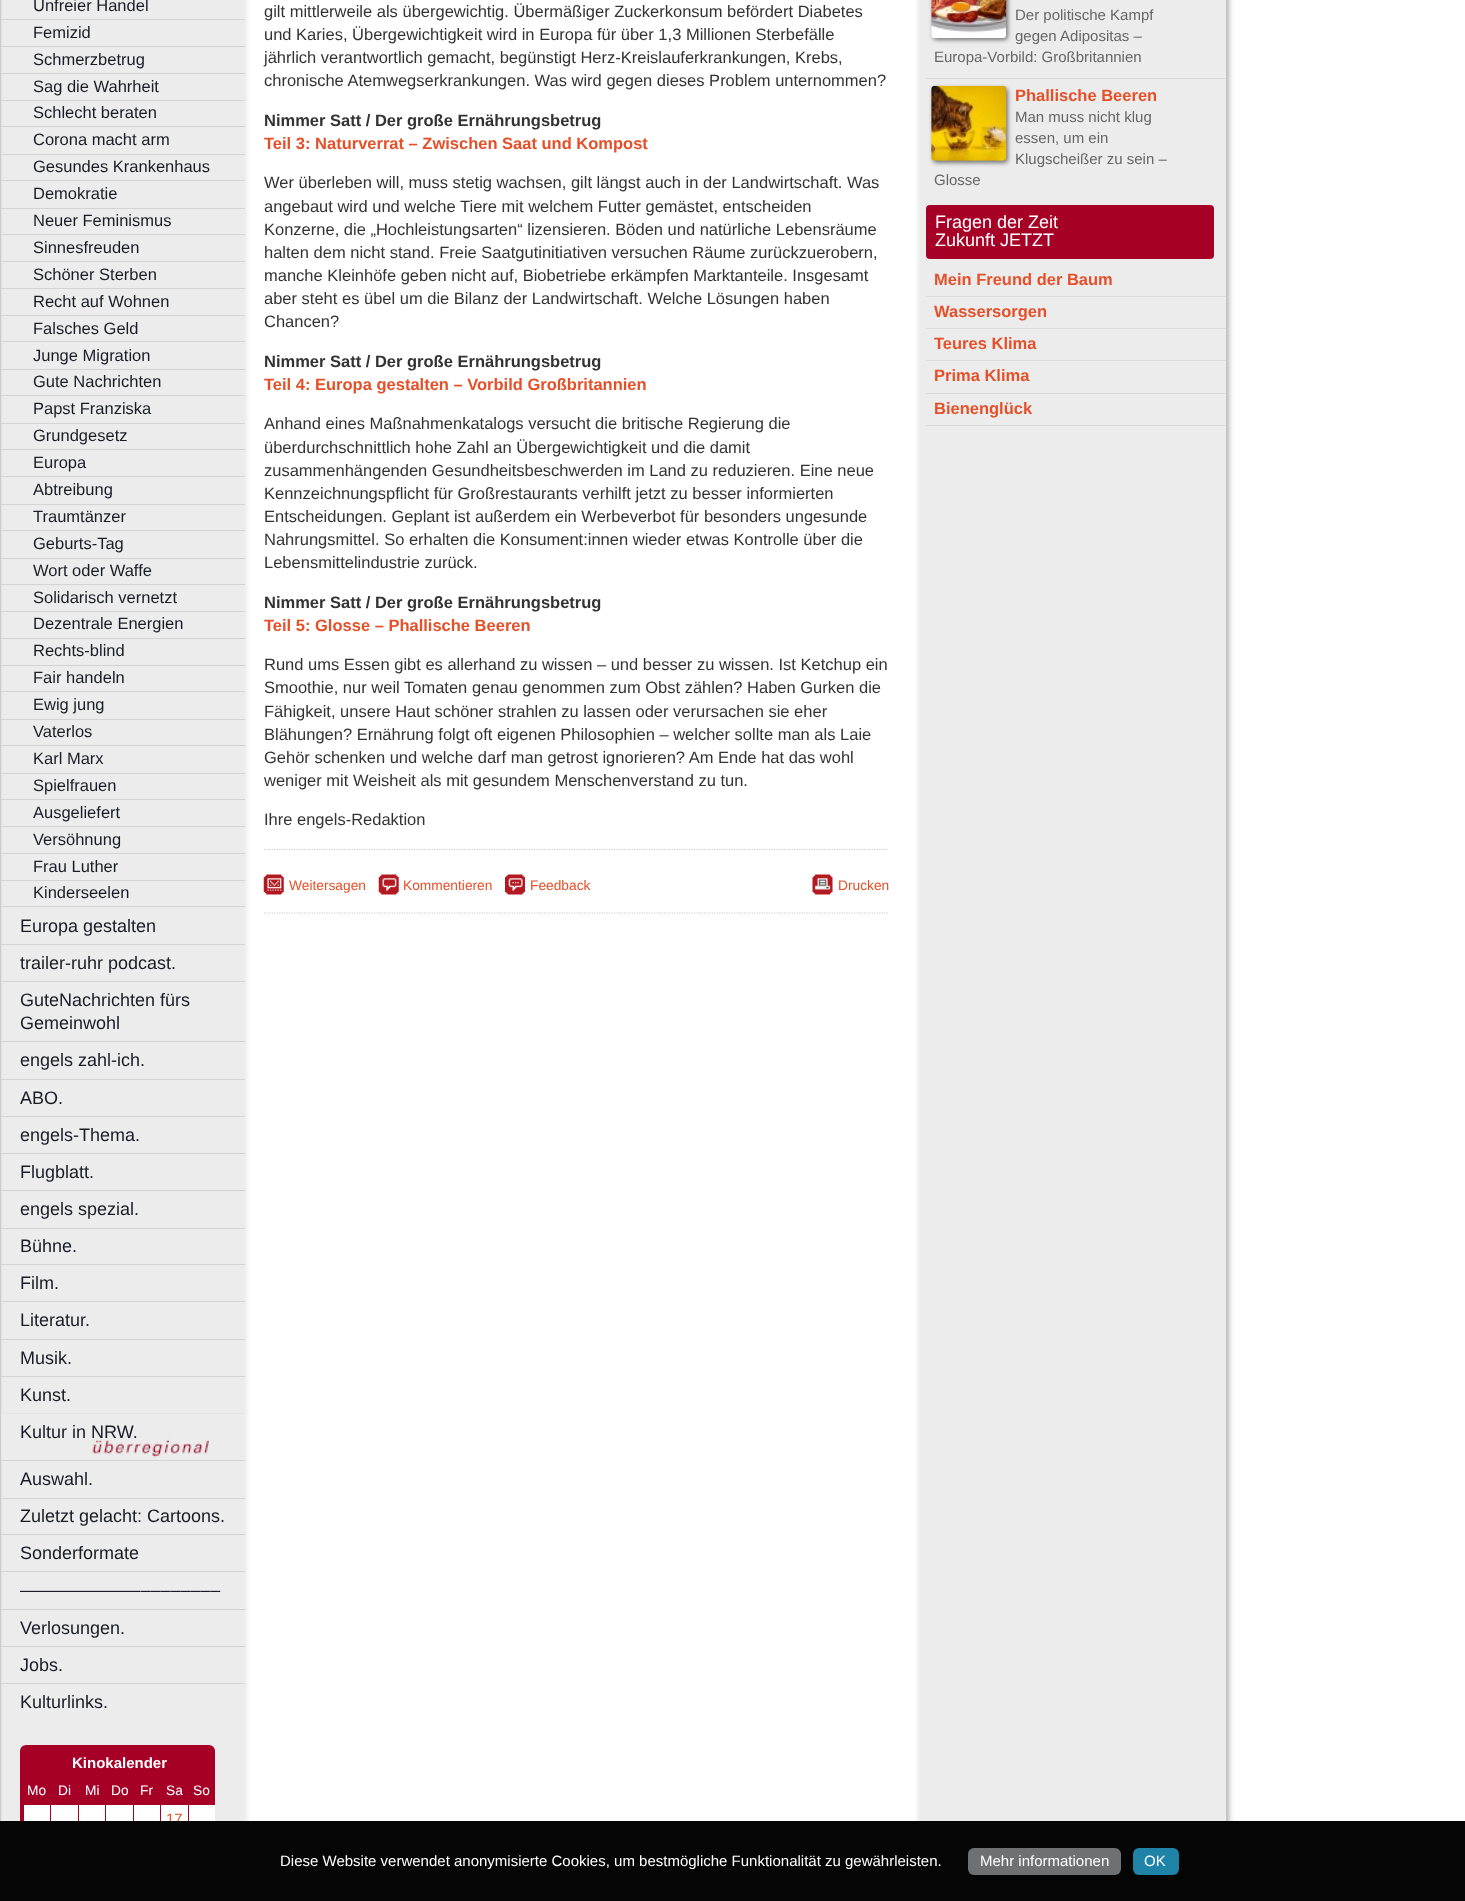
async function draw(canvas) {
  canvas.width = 1465
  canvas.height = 1901
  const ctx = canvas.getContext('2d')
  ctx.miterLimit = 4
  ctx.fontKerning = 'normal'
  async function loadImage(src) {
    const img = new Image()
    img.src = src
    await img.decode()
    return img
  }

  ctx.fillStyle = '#fff'
  ctx.fillRect(0, 0, 1465, 1901)
  ctx.fillStyle = '#999'
  ctx.filter = 'blur(3px)'
  ctx.beginPath()
  ctx.rect(1, -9, 1227, 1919)
  ctx.fill()
  ctx.filter = 'none'
  ctx.drawImage(await loadImage('image0.png'), 1, 0, 1226, 1821)
  ctx.fillStyle = '#ccc'
  ctx.fillRect(0, 0, 1, 1821)
  ctx.font = '16.5px Liberation Sans'
  ctx.fillStyle = '#191c26'
  ctx.fillText('Unfreier Handel', 33, 11)
  ctx.fillStyle = '#d3d3d3'
  ctx.fillRect(1, 19, 244, 1)
  ctx.fillStyle = '#191c26'
  ctx.fillText('Femizid', 33, 38)
  ctx.fillStyle = '#d3d3d3'
  ctx.fillRect(1, 46, 244, 1)
  ctx.fillStyle = '#191c26'
  ctx.fillText('Schmerzbetrug', 33, 65)
  ctx.fillStyle = '#d3d3d3'
  ctx.fillRect(1, 73, 244, 1)
  ctx.fillStyle = '#191c26'
  ctx.fillText('Sag die Wahrheit', 33, 92)
  ctx.fillStyle = '#d3d3d3'
  ctx.fillRect(1, 100, 244, 1)
  ctx.fillStyle = '#191c26'
  ctx.fillText('Schlecht beraten', 33, 118)
  ctx.fillStyle = '#d3d3d3'
  ctx.fillRect(1, 126, 244, 1)
  ctx.fillStyle = '#191c26'
  ctx.fillText('Corona macht arm', 33, 145)
  ctx.fillStyle = '#d3d3d3'
  ctx.fillRect(1, 154, 244, 1)
  ctx.fillStyle = '#191c26'
  ctx.fillText('Gesundes Krankenhaus', 33, 172)
  ctx.fillStyle = '#d3d3d3'
  ctx.fillRect(1, 180, 244, 1)
  ctx.fillStyle = '#191c26'
  ctx.fillText('Demokratie', 33, 199)
  ctx.fillStyle = '#d3d3d3'
  ctx.fillRect(1, 208, 244, 1)
  ctx.fillStyle = '#191c26'
  ctx.fillText('Neuer Feminismus', 33, 226)
  ctx.fillStyle = '#d3d3d3'
  ctx.fillRect(1, 234, 244, 1)
  ctx.fillStyle = '#191c26'
  ctx.fillText('Sinnesfreuden', 33, 253)
  ctx.fillStyle = '#d3d3d3'
  ctx.fillRect(1, 261, 244, 1)
  ctx.fillStyle = '#191c26'
  ctx.fillText('Schöner Sterben', 33, 280)
  ctx.fillStyle = '#d3d3d3'
  ctx.fillRect(1, 288, 244, 1)
  ctx.fillStyle = '#191c26'
  ctx.fillText('Recht auf Wohnen', 33, 307)
  ctx.fillStyle = '#d3d3d3'
  ctx.fillRect(1, 315, 244, 1)
  ctx.fillStyle = '#191c26'
  ctx.fillText('Falsches Geld', 33, 334)
  ctx.fillStyle = '#d3d3d3'
  ctx.fillRect(1, 341, 244, 1)
  ctx.fillStyle = '#191c26'
  ctx.fillText('Junge Migration', 33, 361)
  ctx.fillStyle = '#d3d3d3'
  ctx.fillRect(1, 369, 244, 1)
  ctx.fillStyle = '#191c26'
  ctx.fillText('Gute Nachrichten', 33, 387)
  ctx.fillStyle = '#d3d3d3'
  ctx.fillRect(1, 395, 244, 1)
  ctx.fillStyle = '#191c26'
  ctx.fillText('Papst Franziska', 33, 414)
  ctx.fillStyle = '#d3d3d3'
  ctx.fillRect(1, 423, 244, 1)
  ctx.fillStyle = '#191c26'
  ctx.fillText('Grundgesetz', 33, 441)
  ctx.fillStyle = '#d3d3d3'
  ctx.fillRect(1, 449, 244, 1)
  ctx.fillStyle = '#191c26'
  ctx.fillText('Europa', 33, 468)
  ctx.fillStyle = '#d3d3d3'
  ctx.fillRect(1, 476, 244, 1)
  ctx.fillStyle = '#191c26'
  ctx.fillText('Abtreibung', 33, 495)
  ctx.fillStyle = '#d3d3d3'
  ctx.fillRect(1, 504, 244, 1)
  ctx.fillStyle = '#191c26'
  ctx.fillText('Traumtänzer', 33, 522)
  ctx.fillStyle = '#d3d3d3'
  ctx.fillRect(1, 530, 244, 1)
  ctx.fillStyle = '#191c26'
  ctx.fillText('Geburts-Tag', 33, 549)
  ctx.fillStyle = '#d3d3d3'
  ctx.fillRect(1, 558, 244, 1)
  ctx.fillStyle = '#191c26'
  ctx.fillText('Wort oder Waffe', 33, 576)
  ctx.fillStyle = '#d3d3d3'
  ctx.fillRect(1, 584, 244, 1)
  ctx.fillStyle = '#191c26'
  ctx.fillText('Solidarisch vernetzt', 33, 603)
  ctx.fillStyle = '#d3d3d3'
  ctx.fillRect(1, 611, 244, 1)
  ctx.fillStyle = '#191c26'
  ctx.fillText('Dezentrale Energien', 33, 629)
  ctx.fillStyle = '#d3d3d3'
  ctx.fillRect(1, 638, 244, 1)
  ctx.fillStyle = '#191c26'
  ctx.fillText('Rechts-blind', 33, 656)
  ctx.fillStyle = '#d3d3d3'
  ctx.fillRect(1, 665, 244, 1)
  ctx.fillStyle = '#191c26'
  ctx.fillText('Fair handeln', 33, 683)
  ctx.fillStyle = '#d3d3d3'
  ctx.fillRect(1, 691, 244, 1)
  ctx.fillStyle = '#191c26'
  ctx.fillText('Ewig jung', 33, 710)
  ctx.fillStyle = '#d3d3d3'
  ctx.fillRect(1, 719, 244, 1)
  ctx.fillStyle = '#191c26'
  ctx.fillText('Vaterlos', 33, 737)
  ctx.fillStyle = '#d3d3d3'
  ctx.fillRect(1, 745, 244, 1)
  ctx.fillStyle = '#191c26'
  ctx.fillText('Karl Marx', 33, 764)
  ctx.fillStyle = '#d3d3d3'
  ctx.fillRect(1, 773, 244, 1)
  ctx.fillStyle = '#191c26'
  ctx.fillText('Spielfrauen', 33, 791)
  ctx.fillStyle = '#d3d3d3'
  ctx.fillRect(1, 799, 244, 1)
  ctx.fillStyle = '#191c26'
  ctx.fillText('Ausgeliefert', 33, 818)
  ctx.fillStyle = '#d3d3d3'
  ctx.fillRect(1, 826, 244, 1)
  ctx.fillStyle = '#191c26'
  ctx.fillText('Versöhnung', 33, 845)
  ctx.fillStyle = '#d3d3d3'
  ctx.fillRect(1, 853, 244, 1)
  ctx.fillStyle = '#191c26'
  ctx.fillText('Frau Luther', 33, 872)
  ctx.fillStyle = '#d3d3d3'
  ctx.fillRect(1, 880, 244, 1)
  ctx.fillStyle = '#191c26'
  ctx.fillText('Kinderseelen', 33, 898)
  ctx.fillStyle = '#d3d3d3'
  ctx.fillRect(1, 906, 244, 1)
  ctx.font = '18px Liberation Sans'
  ctx.fillStyle = '#191c26'
  ctx.fillText('Europa gestalten', 20, 932)
  ctx.fillStyle = '#d3d3d3'
  ctx.fillRect(1, 944, 244, 1)
  ctx.fillStyle = '#191c26'
  ctx.fillText('trailer-ruhr podcast.', 20, 969)
  ctx.fillStyle = '#d3d3d3'
  ctx.fillRect(1, 981, 244, 1)
  ctx.fillStyle = '#191c26'
  ctx.fillText('GuteNachrichten fürs', 20, 1006)
  ctx.fillText('Gemeinwohl', 20, 1029)
  ctx.fillStyle = '#d3d3d3'
  ctx.fillRect(1, 1041, 244, 1)
  ctx.fillStyle = '#191c26'
  ctx.fillText('engels zahl-ich.', 20, 1066)
  ctx.fillStyle = '#d3d3d3'
  ctx.fillRect(1, 1079, 244, 1)
  ctx.fillStyle = '#191c26'
  ctx.fillText('ABO.', 20, 1104)
  ctx.fillStyle = '#d3d3d3'
  ctx.fillRect(1, 1116, 244, 1)
  ctx.fillStyle = '#191c26'
  ctx.fillText('engels-Thema.', 20, 1141)
  ctx.fillStyle = '#d3d3d3'
  ctx.fillRect(1, 1153, 244, 1)
  ctx.fillStyle = '#191c26'
  ctx.fillText('Flugblatt.', 20, 1178)
  ctx.fillStyle = '#d3d3d3'
  ctx.fillRect(1, 1190, 244, 1)
  ctx.fillStyle = '#191c26'
  ctx.fillText('engels spezial.', 20, 1215)
  ctx.fillStyle = '#d3d3d3'
  ctx.fillRect(1, 1228, 244, 1)
  ctx.fillStyle = '#191c26'
  ctx.fillText('Bühne.', 20, 1252)
  ctx.fillStyle = '#d3d3d3'
  ctx.fillRect(1, 1264, 244, 1)
  ctx.fillStyle = '#191c26'
  ctx.fillText('Film.', 20, 1289)
  ctx.fillStyle = '#d3d3d3'
  ctx.fillRect(1, 1301, 244, 1)
  ctx.fillStyle = '#191c26'
  ctx.fillText('Literatur.', 20, 1326)
  ctx.fillStyle = '#d3d3d3'
  ctx.fillRect(1, 1339, 244, 1)
  ctx.fillStyle = '#191c26'
  ctx.fillText('Musik.', 20, 1364)
  ctx.fillStyle = '#d3d3d3'
  ctx.fillRect(1, 1376, 244, 1)
  ctx.fillStyle = '#191c26'
  ctx.fillText('Kunst.', 20, 1401)
  ctx.fillStyle = '#d3d3d3'
  ctx.fillRect(1, 1413, 244, 1)
  ctx.drawImage(await loadImage('image1.png'), 1, 1413, 244, 45)
  ctx.fillStyle = '#191c26'
  ctx.fillText('Kultur in NRW.', 20, 1438)
  ctx.fillStyle = '#d3d3d3'
  ctx.fillRect(1, 1460, 244, 1)
  ctx.fillStyle = '#191c26'
  ctx.fillText('Auswahl.', 20, 1485)
  ctx.fillStyle = '#d3d3d3'
  ctx.fillRect(1, 1498, 244, 1)
  ctx.fillStyle = '#191c26'
  ctx.fillText('Zuletzt gelacht: Cartoons.', 20, 1522)
  ctx.fillStyle = '#d3d3d3'
  ctx.fillRect(1, 1534, 244, 1)
  ctx.fillStyle = '#191c26'
  ctx.fillText('Sonderformate', 20, 1559)
  ctx.fillStyle = '#d3d3d3'
  ctx.fillRect(1, 1571, 244, 1)
  ctx.fillStyle = '#191c26'
  ctx.fillText('––––––––––––––––––––', 20, 1596)
  ctx.fillStyle = '#d3d3d3'
  ctx.fillRect(1, 1609, 244, 1)
  ctx.fillStyle = '#191c26'
  ctx.fillText('Verlosungen.', 20, 1634)
  ctx.fillStyle = '#d3d3d3'
  ctx.fillRect(1, 1646, 244, 1)
  ctx.fillStyle = '#191c26'
  ctx.fillText('Jobs.', 20, 1671)
  ctx.fillStyle = '#d3d3d3'
  ctx.fillRect(1, 1683, 244, 1)
  ctx.fillStyle = '#191c26'
  ctx.fillText('Kulturlinks.', 20, 1708)
  ctx.fillStyle = '#a60027'
  ctx.beginPath()
  ctx.roundRect(20, 1745, 195, 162, 6)
  ctx.fill()
  ctx.font = 'bold 15px Liberation Sans'
  ctx.fillStyle = '#fff'
  ctx.fillText('Kinokalender', 72, 1768)
  ctx.font = '13.75px Liberation Sans'
  ctx.fillText('Mo', 27, 1795)
  ctx.fillText('Di', 58, 1795)
  ctx.fillText('Mi', 85, 1795)
  ctx.fillText('Do', 111, 1795)
  ctx.fillText('Fr', 140, 1795)
  ctx.fillText('Sa', 166, 1795)
  ctx.fillText('So', 193, 1795)
  ctx.fillRect(24, 1805, 26, 16)
  ctx.fillRect(51, 1805, 27, 16)
  ctx.fillRect(79, 1805, 26, 16)
  ctx.fillRect(106, 1805, 27, 16)
  ctx.fillRect(134, 1805, 26, 16)
  ctx.fillRect(161, 1805, 27, 16)
  ctx.font = '15px Liberation Sans'
  ctx.fillStyle = '#e55029'
  ctx.fillText('17', 166, 1824)
  ctx.fillStyle = '#fff'
  ctx.fillRect(189, 1805, 26, 16)
  ctx.font = '16.5px Liberation Sans'
  ctx.fillStyle = '#333'
  ctx.fillText('gilt mittlerweile als übergewichtig. Übermäßiger Zuckerkonsum befördert Diabetes', 264, 17)
  ctx.fillText('und Karies, Übergewichtigkeit wird in Europa für über 1,3 Millionen Sterbefälle', 264, 40)
  ctx.fillText('jährlich verantwortlich gemacht, begünstigt Herz-Kreislauferkrankungen, Krebs,', 264, 63)
  ctx.fillText('chronische Atemwegserkrankungen. Was wird gegen dieses Problem unternommen?', 264, 86)
  ctx.font = 'bold 16.5px Liberation Sans'
  ctx.fillText('Nimmer Satt / Der große Ernährungsbetrug', 264, 126)
  ctx.fillStyle = '#e55029'
  ctx.fillText('Teil 3: Naturverrat – Zwischen Saat und Kompost', 264, 149)
  ctx.font = '16.5px Liberation Sans'
  ctx.fillStyle = '#333'
  ctx.fillText('Wer überleben will, muss stetig wachsen, gilt längst auch in der Landwirtschaft. Was', 264, 188)
  ctx.fillText('angebaut wird und welche Tiere mit welchem Futter gemästet, entscheiden', 264, 212)
  ctx.fillText('Konzerne, die „Hochleistungsarten“ lizensieren. Böden und natürliche Lebensräume', 264, 235)
  ctx.fillText('halten dem nicht stand. Freie Saatgutinitiativen versuchen Räume zurückzuerobern,', 264, 258)
  ctx.fillText('manche Kleinhöfe geben nicht auf, Biobetriebe erkämpfen Marktanteile. Insgesamt', 264, 281)
  ctx.fillText('aber steht es übel um die Bilanz der Landwirtschaft. Welche Lösungen haben', 264, 304)
  ctx.fillText('Chancen?', 264, 327)
  ctx.font = 'bold 16.5px Liberation Sans'
  ctx.fillText('Nimmer Satt / Der große Ernährungsbetrug', 264, 367)
  ctx.fillStyle = '#e55029'
  ctx.fillText('Teil 4: Europa gestalten – Vorbild Großbritannien', 264, 390)
  ctx.font = '16.5px Liberation Sans'
  ctx.fillStyle = '#333'
  ctx.fillText('Anhand eines Maßnahmenkatalogs versucht die britische Regierung die', 264, 429)
  ctx.fillText('überdurchschnittlich hohe Zahl an Übergewichtigkeit und die damit', 264, 453)
  ctx.fillText('zusammenhängenden Gesundheitsbeschwerden im Land zu reduzieren. Eine neue', 264, 476)
  ctx.fillText('Kennzeichnungspflicht für Großrestaurants verhilft jetzt zu besser informierten', 264, 499)
  ctx.fillText('Entscheidungen. Geplant ist außerdem ein Werbeverbot für besonders ungesunde', 264, 522)
  ctx.fillText('Nahrungsmittel. So erhalten die Konsument:innen wieder etwas Kontrolle über die', 264, 545)
  ctx.fillText('Lebensmittelindustrie zurück.', 264, 568)
  ctx.font = 'bold 16.5px Liberation Sans'
  ctx.fillText('Nimmer Satt / Der große Ernährungsbetrug', 264, 608)
  ctx.fillStyle = '#e55029'
  ctx.fillText('Teil 5: Glosse – Phallische Beeren', 264, 631)
  ctx.font = '16.5px Liberation Sans'
  ctx.fillStyle = '#333'
  ctx.fillText('Rund ums Essen gibt es allerhand zu wissen – und besser zu wissen. Ist Ketchup ein', 264, 670)
  ctx.fillText('Smoothie, nur weil Tomaten genau genommen zum Obst zählen? Haben Gurken die', 264, 693)
  ctx.fillText('Fähigkeit, unsere Haut schöner strahlen zu lassen oder verursachen sie eher', 264, 717)
  ctx.fillText('Blähungen? Ernährung folgt oft eigenen Philosophien – welcher sollte man als Laie', 264, 740)
  ctx.fillText('Gehör schenken und welche darf man getrost ignorieren? Am Ende hat das wohl', 264, 763)
  ctx.fillText('weniger mit Weisheit als mit gesundem Menschenverstand zu tun.', 264, 786)
  ctx.fillText('Ihre engels-Redaktion', 264, 825)
  ctx.beginPath()
  ctx.moveTo(264, 849.5)
  ctx.lineTo(889, 849.5)
  ctx.strokeStyle = '#ccc'
  ctx.lineWidth = 1.2
  ctx.setLineDash([1.25, 1.25])
  ctx.stroke()
  ctx.drawImage(await loadImage('image2.png'), 263, 874, 21, 21)
  ctx.font = '13.75px Liberation Sans'
  ctx.fillStyle = '#e55029'
  ctx.fillText('Weitersagen', 289, 890)
  ctx.drawImage(await loadImage('image3.png'), 378, 874, 21, 21)
  ctx.fillText('Kommentieren', 403, 890)
  ctx.drawImage(await loadImage('image4.png'), 505, 874, 20, 21)
  ctx.fillText('Feedback', 530, 890)
  ctx.drawImage(await loadImage('image5.png'), 812, 874, 21, 21)
  ctx.fillText('Drucken', 838, 890)
  ctx.beginPath()
  ctx.moveTo(264, 913)
  ctx.lineTo(889, 913)
  ctx.stroke()
  ctx.fillStyle = '#777'
  ctx.filter = 'blur(2px)'
  ctx.beginPath()
  ctx.roundRect(933, -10, 75, 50, 4)
  ctx.fill()
  ctx.filter = 'none'
  ctx.drawImage(await loadImage('image6.png'), 931, 0, 76, 38)
  ctx.font = '15px Liberation Sans'
  ctx.fillStyle = '#666'
  ctx.fillText('Der politische Kampf', 1015, 20)
  ctx.fillText('gegen Adipositas –', 1015, 41)
  ctx.fillText('Europa-Vorbild: Großbritannien', 934, 62)
  ctx.fillStyle = '#dcdcdc'
  ctx.fillRect(926, 78, 300, 1)
  ctx.fillStyle = '#777'
  ctx.filter = 'blur(2px)'
  ctx.beginPath()
  ctx.roundRect(933, 88, 75, 75, 4)
  ctx.fill()
  ctx.filter = 'none'
  ctx.drawImage(await loadImage('image7.png'), 931, 85, 76, 76)
  ctx.font = 'bold 16.5px Liberation Sans'
  ctx.fillStyle = '#e55029'
  ctx.fillText('Phallische Beeren', 1015, 101)
  ctx.font = '15px Liberation Sans'
  ctx.fillStyle = '#666'
  ctx.fillText('Man muss nicht klug', 1015, 122)
  ctx.fillText('essen, um ein', 1015, 143)
  ctx.fillText('Klugscheißer zu sein –', 1015, 164)
  ctx.fillText('Glosse', 934, 185)
  ctx.fillStyle = '#a60027'
  ctx.beginPath()
  ctx.roundRect(926, 205, 288, 54, 4)
  ctx.fill()
  ctx.font = '18px Liberation Sans'
  ctx.fillStyle = '#fff'
  ctx.fillText('Fragen der Zeit', 935, 228)
  ctx.fillText('Zukunft JETZT', 935, 246)
  ctx.fillStyle = '#dcdcdc'
  ctx.fillRect(926, 296, 300, 1)
  ctx.font = 'bold 16.5px Liberation Sans'
  ctx.fillStyle = '#e55029'
  ctx.fillText('Mein Freund der Baum', 934, 285)
  ctx.fillStyle = '#dcdcdc'
  ctx.fillRect(926, 328, 300, 1)
  ctx.fillStyle = '#e55029'
  ctx.fillText('Wassersorgen', 934, 317)
  ctx.fillStyle = '#dcdcdc'
  ctx.fillRect(926, 360, 300, 1)
  ctx.fillStyle = '#e55029'
  ctx.fillText('Teures Klima', 934, 349)
  ctx.fillStyle = '#dcdcdc'
  ctx.fillRect(926, 393, 300, 1)
  ctx.fillStyle = '#e55029'
  ctx.fillText('Prima Klima', 934, 381)
  ctx.fillStyle = '#dcdcdc'
  ctx.fillRect(926, 425, 300, 1)
  ctx.fillStyle = '#e55029'
  ctx.fillText('Bienenglück', 934, 414)
  ctx.fillStyle = '#050505'
  ctx.fillRect(0, 1821, 1465, 80)
  ctx.font = '15px Liberation Sans'
  ctx.fillStyle = '#fff'
  ctx.fillText('Diese Website verwendet anonymisierte Cookies, um bestmögliche Funktionalität zu gewährleisten.', 280, 1866)
  ctx.fillStyle = '#6e7071'
  ctx.beginPath()
  ctx.roundRect(968, 1848, 153, 27, 6)
  ctx.fill()
  ctx.fillStyle = '#fff'
  ctx.fillText('Mehr informationen', 980, 1866)
  ctx.fillStyle = '#1f83a8'
  ctx.beginPath()
  ctx.roundRect(1133, 1848, 46, 27, 6)
  ctx.fill()
  ctx.fillStyle = '#fff'
  ctx.fillText('OK', 1144, 1866)
}

draw(document.querySelector('canvas'))
